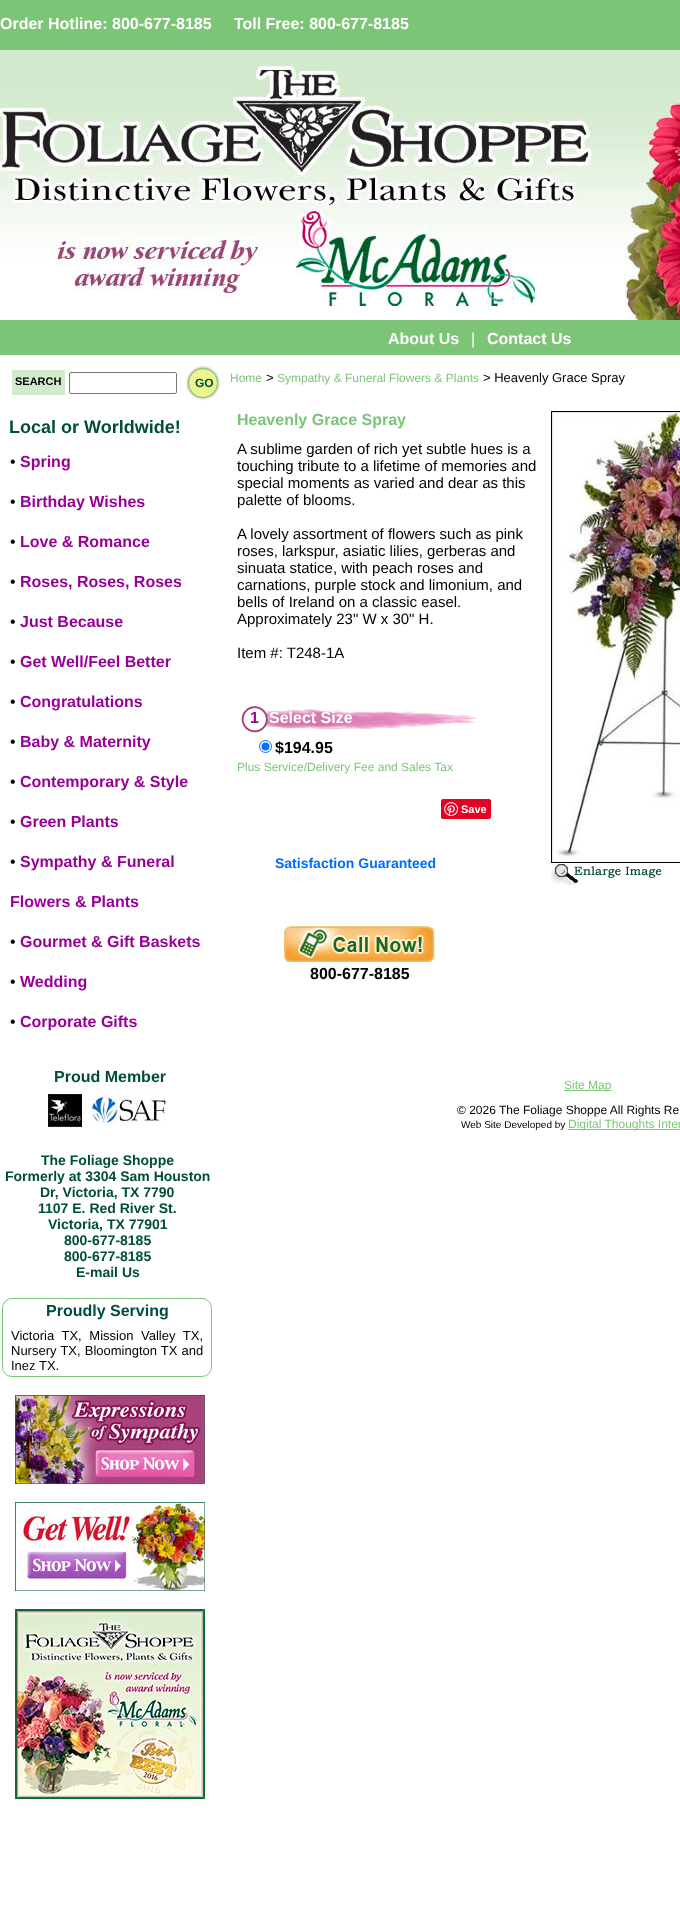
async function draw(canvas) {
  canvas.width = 680
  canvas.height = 1905
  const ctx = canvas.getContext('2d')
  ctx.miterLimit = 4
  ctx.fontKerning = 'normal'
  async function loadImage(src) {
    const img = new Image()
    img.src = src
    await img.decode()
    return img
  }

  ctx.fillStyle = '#fff'
  ctx.fillRect(0, 0, 680, 1905)
  ctx.fillStyle = '#7cc576'
  ctx.fillRect(0, 0, 680, 50)
  ctx.font = 'bold 16px Liberation Sans'
  ctx.fillStyle = '#fff'
  ctx.fillText('Order Hotline: 800-677-8185     Toll Free: 800-677-8185', 0, 29)
  ctx.drawImage(await loadImage('image0.png'), 0, 50, 680, 270)
  ctx.fillStyle = '#7cc576'
  ctx.fillRect(0, 320, 680, 35)
  ctx.fillStyle = '#fff'
  ctx.fillText('About Us', 388, 344)
  ctx.font = '16px Liberation Sans'
  ctx.fillText('|', 471, 344)
  ctx.font = 'bold 16px Liberation Sans'
  ctx.fillText('Contact Us', 487, 344)
  ctx.fillStyle = '#d1eccd'
  ctx.fillRect(12, 370, 53, 25)
  ctx.font = 'bold 11px Liberation Sans'
  ctx.fillStyle = '#000'
  ctx.fillText('SEARCH', 15, 385)
  ctx.beginPath()
  ctx.roundRect(69.5, 372.5, 107, 21, 1.5)
  ctx.strokeStyle = '#767676'
  ctx.stroke()
  ctx.fillStyle = '#808080'
  ctx.filter = 'blur(1.5px)'
  ctx.beginPath()
  ctx.roundRect(188, 368, 30, 30, 15)
  ctx.fill()
  ctx.filter = 'none'
  ctx.fillStyle = '#ebf68e'
  ctx.beginPath()
  ctx.arc(203, 383, 14.5, 0, 2 * Math.PI)
  ctx.fill()
  ctx.strokeStyle = '#7cc576'
  ctx.stroke()
  ctx.font = 'bold 12px Liberation Sans'
  ctx.fillStyle = '#004e39'
  ctx.fillText('GO', 195, 387)
  ctx.font = 'bold 18px Liberation Sans'
  ctx.fillText('Local or Worldwide!', 9, 433)
  ctx.font = '16px Liberation Sans'
  ctx.fillStyle = '#000'
  ctx.fillText('•', 10, 467)
  ctx.font = 'bold 16px Liberation Sans'
  ctx.fillStyle = '#909'
  ctx.fillText('Spring', 20, 467)
  ctx.font = '16px Liberation Sans'
  ctx.fillStyle = '#000'
  ctx.fillText('•', 10, 507)
  ctx.font = 'bold 16px Liberation Sans'
  ctx.fillStyle = '#909'
  ctx.fillText('Birthday Wishes', 20, 507)
  ctx.font = '16px Liberation Sans'
  ctx.fillStyle = '#000'
  ctx.fillText('•', 10, 547)
  ctx.font = 'bold 16px Liberation Sans'
  ctx.fillStyle = '#909'
  ctx.fillText('Love & Romance', 20, 547)
  ctx.font = '16px Liberation Sans'
  ctx.fillStyle = '#000'
  ctx.fillText('•', 10, 587)
  ctx.font = 'bold 16px Liberation Sans'
  ctx.fillStyle = '#909'
  ctx.fillText('Roses, Roses, Roses', 20, 587)
  ctx.font = '16px Liberation Sans'
  ctx.fillStyle = '#000'
  ctx.fillText('•', 10, 627)
  ctx.font = 'bold 16px Liberation Sans'
  ctx.fillStyle = '#909'
  ctx.fillText('Just Because', 20, 627)
  ctx.font = '16px Liberation Sans'
  ctx.fillStyle = '#000'
  ctx.fillText('•', 10, 667)
  ctx.font = 'bold 16px Liberation Sans'
  ctx.fillStyle = '#909'
  ctx.fillText('Get Well/Feel Better', 20, 667)
  ctx.font = '16px Liberation Sans'
  ctx.fillStyle = '#000'
  ctx.fillText('•', 10, 707)
  ctx.font = 'bold 16px Liberation Sans'
  ctx.fillStyle = '#909'
  ctx.fillText('Congratulations', 20, 707)
  ctx.font = '16px Liberation Sans'
  ctx.fillStyle = '#000'
  ctx.fillText('•', 10, 747)
  ctx.font = 'bold 16px Liberation Sans'
  ctx.fillStyle = '#909'
  ctx.fillText('Baby & Maternity', 20, 747)
  ctx.font = '16px Liberation Sans'
  ctx.fillStyle = '#000'
  ctx.fillText('•', 10, 787)
  ctx.font = 'bold 16px Liberation Sans'
  ctx.fillStyle = '#909'
  ctx.fillText('Contemporary & Style', 20, 787)
  ctx.font = '16px Liberation Sans'
  ctx.fillStyle = '#000'
  ctx.fillText('•', 10, 827)
  ctx.font = 'bold 16px Liberation Sans'
  ctx.fillStyle = '#909'
  ctx.fillText('Green Plants', 20, 827)
  ctx.font = '16px Liberation Sans'
  ctx.fillStyle = '#000'
  ctx.fillText('•', 10, 867)
  ctx.font = 'bold 16px Liberation Sans'
  ctx.fillStyle = '#909'
  ctx.fillText('Sympathy & Funeral', 20, 867)
  ctx.fillText('Flowers & Plants', 10, 907)
  ctx.font = '16px Liberation Sans'
  ctx.fillStyle = '#000'
  ctx.fillText('•', 10, 947)
  ctx.font = 'bold 16px Liberation Sans'
  ctx.fillStyle = '#909'
  ctx.fillText('Gourmet & Gift Baskets', 20, 947)
  ctx.font = '16px Liberation Sans'
  ctx.fillStyle = '#000'
  ctx.fillText('•', 10, 987)
  ctx.font = 'bold 16px Liberation Sans'
  ctx.fillStyle = '#909'
  ctx.fillText('Wedding', 20, 987)
  ctx.font = '16px Liberation Sans'
  ctx.fillStyle = '#000'
  ctx.fillText('•', 10, 1027)
  ctx.font = 'bold 16px Liberation Sans'
  ctx.fillStyle = '#909'
  ctx.fillText('Corporate Gifts', 20, 1027)
  ctx.fillStyle = '#004e39'
  ctx.fillText('Proud Member', 54, 1082)
  ctx.drawImage(await loadImage('image1.png'), 48, 1094, 34, 33)
  ctx.drawImage(await loadImage('image2.png'), 86, 1094, 80, 32)
  ctx.font = 'bold 14px Liberation Sans'
  ctx.fillText('The Foliage Shoppe', 41, 1165)
  ctx.fillText('Formerly at 3304 Sam Houston', 5, 1181)
  ctx.fillText('Dr, Victoria, TX 7790', 40, 1197)
  ctx.fillText('1107 E. Red River St.', 38, 1213)
  ctx.fillText('Victoria, TX 77901', 48, 1229)
  ctx.fillText('800-677-8185', 64, 1245)
  ctx.fillText('800-677-8185', 64, 1261)
  ctx.fillText('E-mail Us', 76, 1277)
  ctx.beginPath()
  ctx.roundRect(2.5, 1298.5, 209, 78, 9.5)
  ctx.stroke()
  ctx.font = 'bold 16px Liberation Sans'
  ctx.fillText('Proudly Serving', 46, 1316)
  ctx.wordSpacing = '4px'
  ctx.font = '13px Liberation Sans'
  ctx.fillStyle = '#000'
  ctx.fillText('Victoria TX, Mission Valley TX,', 11, 1340)
  ctx.wordSpacing = '0.5px'
  ctx.fillText('Nursery TX, Bloomington TX and', 11, 1355)
  ctx.wordSpacing = '0px'
  ctx.fillText('Inez TX.', 11, 1370)
  ctx.drawImage(await loadImage('image3.png'), 15, 1395, 190, 89)
  ctx.drawImage(await loadImage('image4.png'), 15, 1502, 190, 89)
  ctx.drawImage(await loadImage('image5.png'), 15, 1609, 190, 190)
  ctx.font = '12px Liberation Sans'
  ctx.fillStyle = '#7cc576'
  ctx.fillText('Home', 230, 382)
  ctx.font = '13px Liberation Sans'
  ctx.fillStyle = '#000'
  ctx.fillText('>', 266, 382)
  ctx.font = '12px Liberation Sans'
  ctx.fillStyle = '#7cc576'
  ctx.fillText('Sympathy & Funeral Flowers & Plants', 277, 382)
  ctx.font = '13px Liberation Sans'
  ctx.fillStyle = '#000'
  ctx.fillText('> Heavenly Grace Spray', 483, 382)
  ctx.font = 'bold 16px Liberation Sans'
  ctx.fillStyle = '#7cc576'
  ctx.fillText('Heavenly Grace Spray', 237, 425)
  ctx.font = '15px Liberation Sans'
  ctx.fillStyle = '#000'
  ctx.fillText('A sublime garden of rich yet subtle hues is a', 237, 454)
  ctx.fillText('touching tribute to a lifetime of memories and', 237, 471)
  ctx.fillText('special moments as varied and dear as this', 237, 488)
  ctx.fillText('palette of blooms.', 237, 505)
  ctx.fillText('A lovely assortment of flowers such as pink', 237, 539)
  ctx.fillText('roses, larkspur, asiatic lilies, gerberas and', 237, 556)
  ctx.fillText('sinuata statice, with peach roses and', 237, 573)
  ctx.fillText('carnations, purple stock and limonium, and', 237, 590)
  ctx.fillText('bells of Ireland on a classic easel.', 237, 607)
  ctx.fillText('Approximately 23" W x 30" H.', 237, 624)
  ctx.fillText('Item #: T248-1A', 237, 658)
  ctx.drawImage(await loadImage('image6.png'), 241, 706, 237, 27)
  ctx.font = 'bold 16px Liberation Sans'
  ctx.fillStyle = '#909'
  ctx.fillText('1', 250, 723)
  ctx.fillStyle = '#fff'
  ctx.fillText('Select Size', 269, 723)
  ctx.beginPath()
  ctx.arc(265.5, 746.5, 6, 0, 2 * Math.PI)
  ctx.strokeStyle = '#0075ff'
  ctx.stroke()
  ctx.fillStyle = '#0075ff'
  ctx.beginPath()
  ctx.arc(265.5, 746.5, 4, 0, 2 * Math.PI)
  ctx.fill()
  ctx.fillStyle = '#000'
  ctx.fillText('$194.95', 275, 753)
  ctx.font = '12px Liberation Sans'
  ctx.fillStyle = '#7cc576'
  ctx.fillText('Plus Service/Delivery Fee and Sales Tax', 237, 771)
  ctx.fillStyle = '#e60023'
  ctx.beginPath()
  ctx.roundRect(441, 799, 50, 20, 2)
  ctx.fill()
  ctx.drawImage(await loadImage('image7.png'), 444, 802, 14, 14)
  ctx.font = 'bold 11px Liberation Sans'
  ctx.fillStyle = '#fff'
  ctx.fillText('Save', 461, 813)
  ctx.font = 'bold 14px Liberation Sans'
  ctx.fillStyle = '#006cff'
  ctx.fillText('Satisfaction Guaranteed', 275, 868)
  ctx.drawImage(await loadImage('image8.png'), 284, 926, 151, 36)
  ctx.font = 'bold 16px Liberation Sans'
  ctx.fillStyle = '#000'
  ctx.fillText('800-677-8185', 310, 979)
  ctx.strokeStyle = '#000'
  ctx.strokeRect(551.5, 411.5, 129, 451)
  ctx.drawImage(await loadImage('image9.png'), 552, 412, 128, 450)
  ctx.drawImage(await loadImage('image10.png'), 551, 864, 111, 21)
  ctx.fillStyle = '#7cc576'
  ctx.fillRect(564, 1090, 47, 1)
  ctx.font = '12px Liberation Sans'
  ctx.fillText('Site Map', 564, 1089)
  ctx.fillStyle = '#000'
  ctx.fillText('© 2026 The Foliage Shoppe All Rights Re', 457, 1114)
  ctx.font = '10px Liberation Sans'
  ctx.fillText('Web Site Developed by', 461, 1128)
  ctx.fillStyle = '#7cc576'
  ctx.fillRect(568, 1129, 112, 1)
  ctx.font = '12px Liberation Sans'
  ctx.fillText('Digital Thoughts Inter', 568, 1128)
}

draw(document.querySelector('canvas'))
